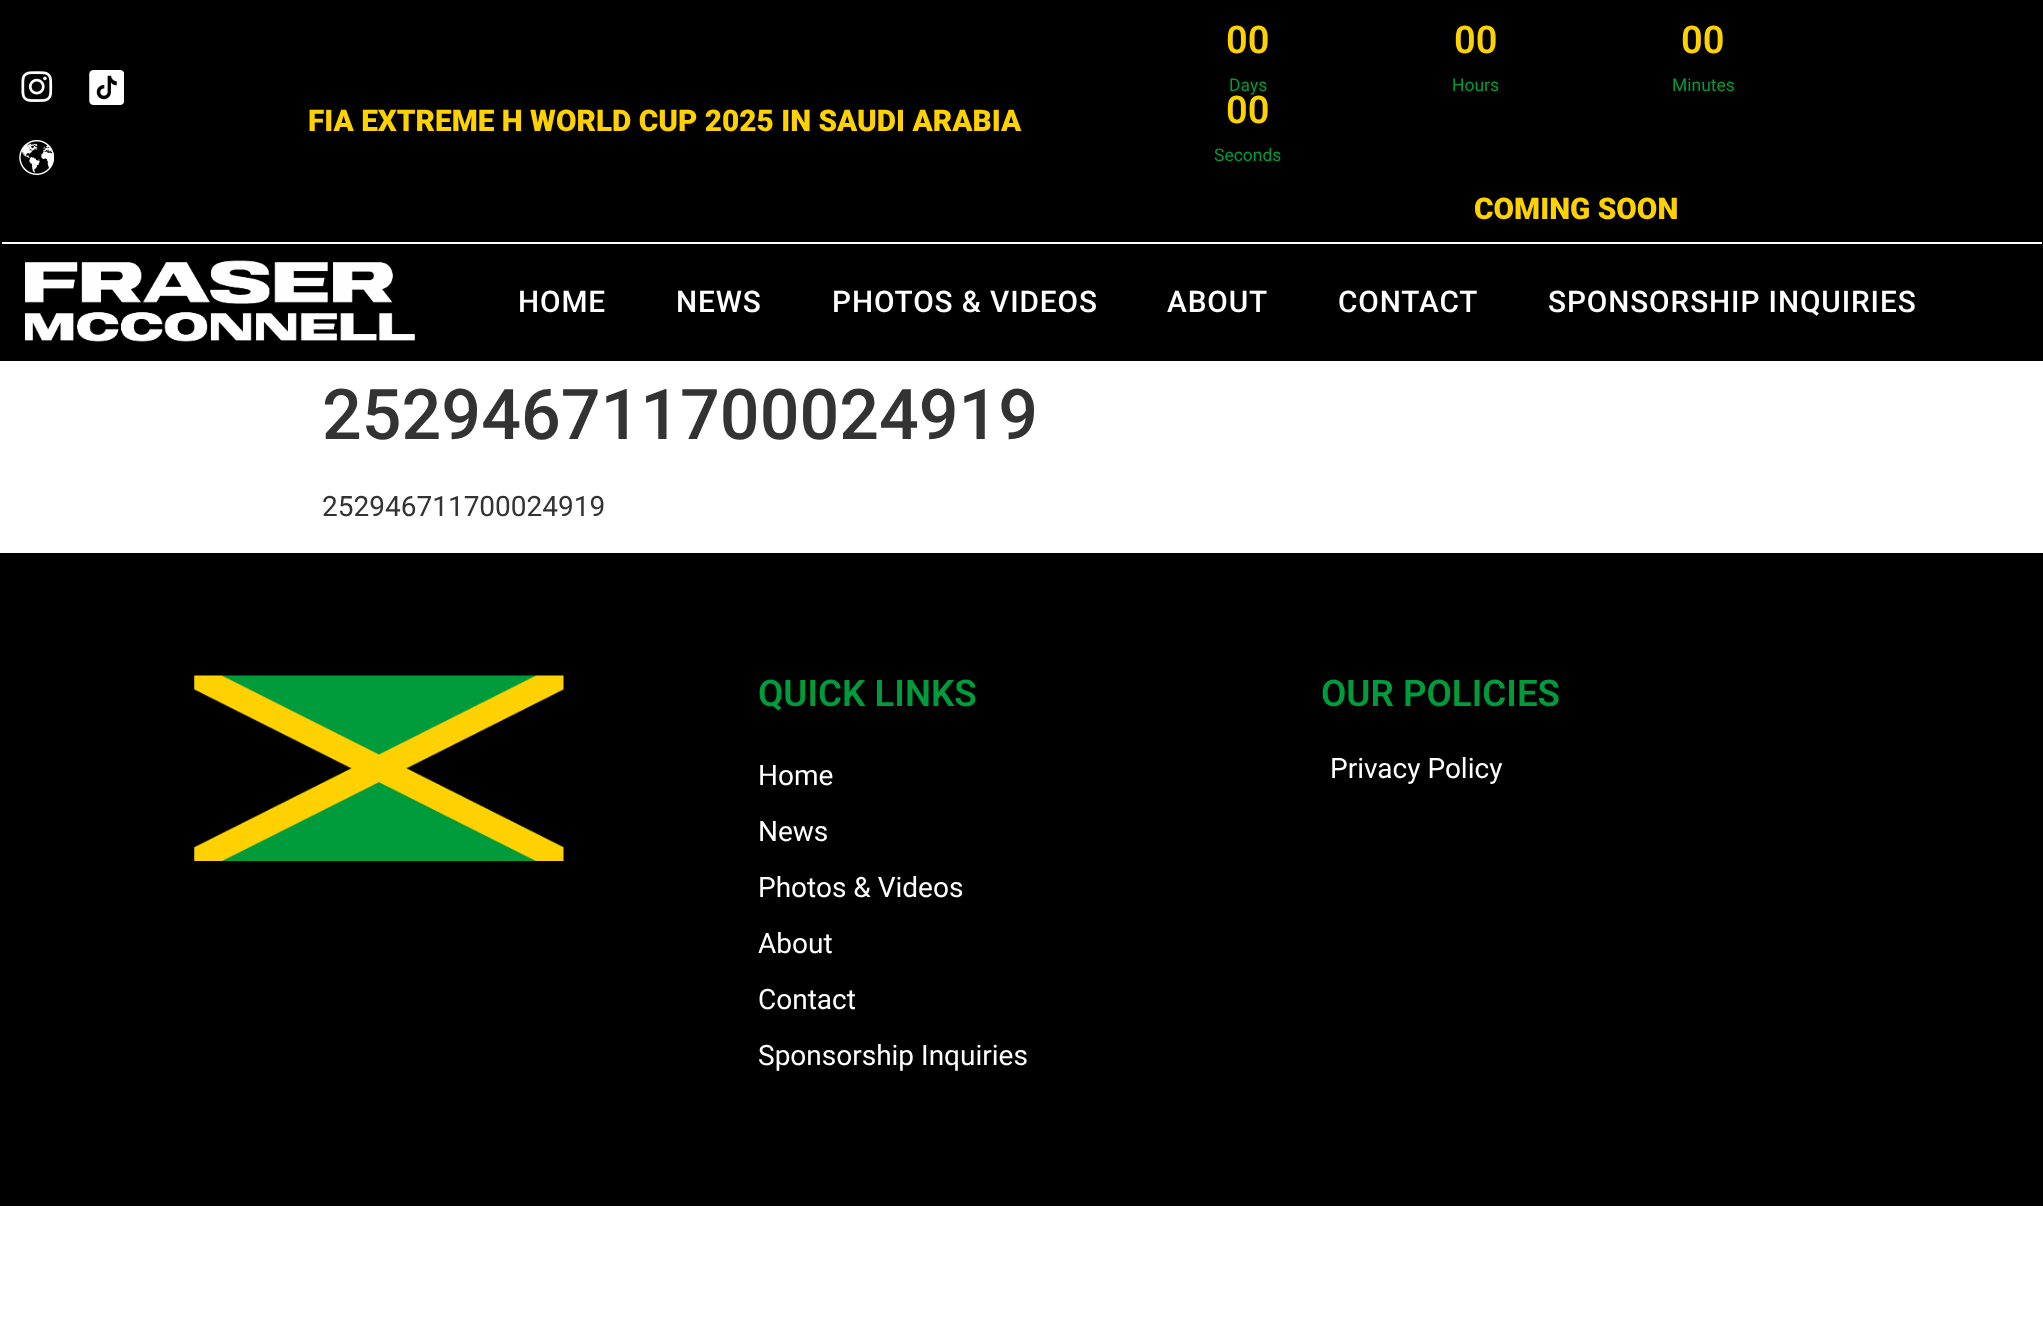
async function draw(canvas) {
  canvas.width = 2043
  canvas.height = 1332
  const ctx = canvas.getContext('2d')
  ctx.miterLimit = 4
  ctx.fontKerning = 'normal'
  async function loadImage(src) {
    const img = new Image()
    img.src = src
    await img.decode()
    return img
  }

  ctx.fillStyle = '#fff'
  ctx.fillRect(0, 0, 2043, 1332)
  ctx.fillStyle = '#000'
  ctx.fillRect(0, 0, 2043, 361)
  ctx.fillStyle = '#fff'
  ctx.fillRect(2, 242, 2040, 2)
  ctx.drawImage(await loadImage('image0.png'), 21, 71, 32, 31)
  ctx.drawImage(await loadImage('image1.png'), 89, 70, 35, 35)
  ctx.drawImage(await loadImage('image2.png'), 19, 140, 35, 35)
  ctx.font = '900 29.75px Roboto'
  ctx.fillStyle = '#fed100'
  ctx.fillText('FIA EXTREME H WORLD CUP 2025 IN SAUDI ARABIA', 308, 131)
  ctx.font = '600 38px Roboto'
  ctx.fillText('00', 1226, 53)
  ctx.font = '17.5px Roboto'
  ctx.fillStyle = '#009b3a'
  ctx.fillText('Days', 1229, 91)
  ctx.font = '600 38px Roboto'
  ctx.fillStyle = '#fed100'
  ctx.fillText('00', 1454, 53)
  ctx.font = '17.5px Roboto'
  ctx.fillStyle = '#009b3a'
  ctx.fillText('Hours', 1452, 91)
  ctx.font = '600 38px Roboto'
  ctx.fillStyle = '#fed100'
  ctx.fillText('00', 1681, 53)
  ctx.font = '17.5px Roboto'
  ctx.fillStyle = '#009b3a'
  ctx.fillText('Minutes', 1672, 91)
  ctx.font = '600 38px Roboto'
  ctx.fillStyle = '#fed100'
  ctx.fillText('00', 1226, 123)
  ctx.font = '17.5px Roboto'
  ctx.fillStyle = '#009b3a'
  ctx.fillText('Seconds', 1214, 161)
  ctx.font = '900 29.75px Roboto'
  ctx.fillStyle = '#fed100'
  ctx.fillText('COMING SOON', 1474, 219)
  ctx.drawImage(await loadImage('image3.png'), 25, 260, 390, 82)
  ctx.letterSpacing = '0.9px'
  ctx.font = '500 29.75px Roboto'
  ctx.fillStyle = '#fff'
  ctx.fillText('HOME', 518, 312)
  ctx.fillText('NEWS', 676, 312)
  ctx.fillText('PHOTOS & VIDEOS', 832, 312)
  ctx.fillText('ABOUT', 1167, 312)
  ctx.fillText('CONTACT', 1338, 312)
  ctx.fillText('SPONSORSHIP INQUIRIES', 1548, 312)
  ctx.letterSpacing = '0px'
  ctx.font = '500 70px Roboto'
  ctx.fillStyle = '#333'
  ctx.fillText('252946711700024919', 322, 439)
  ctx.font = '28px Roboto'
  ctx.fillText('252946711700024919', 322, 516)
  ctx.fillStyle = '#000'
  ctx.fillRect(0, 553, 2043, 653)
  ctx.drawImage(await loadImage('image4.png'), 194, 675, 370, 186)
  ctx.font = '600 36.75px Roboto'
  ctx.fillStyle = '#009b3a'
  ctx.fillText('QUICK LINKS', 758, 706)
  ctx.font = '28px Roboto'
  ctx.fillStyle = '#fff'
  ctx.fillText('Home', 758, 785)
  ctx.fillText('News', 758, 841)
  ctx.fillText('Photos & Videos', 758, 897)
  ctx.fillText('About', 758, 953)
  ctx.fillText('Contact', 758, 1009)
  ctx.fillText('Sponsorship Inquiries', 758, 1065)
  ctx.font = '600 36.75px Roboto'
  ctx.fillStyle = '#009b3a'
  ctx.fillText('OUR POLICIES', 1321, 706)
  ctx.font = '28px Roboto'
  ctx.fillStyle = '#fff'
  ctx.fillText('Privacy Policy', 1330, 778)
}

draw(document.querySelector('canvas'))
